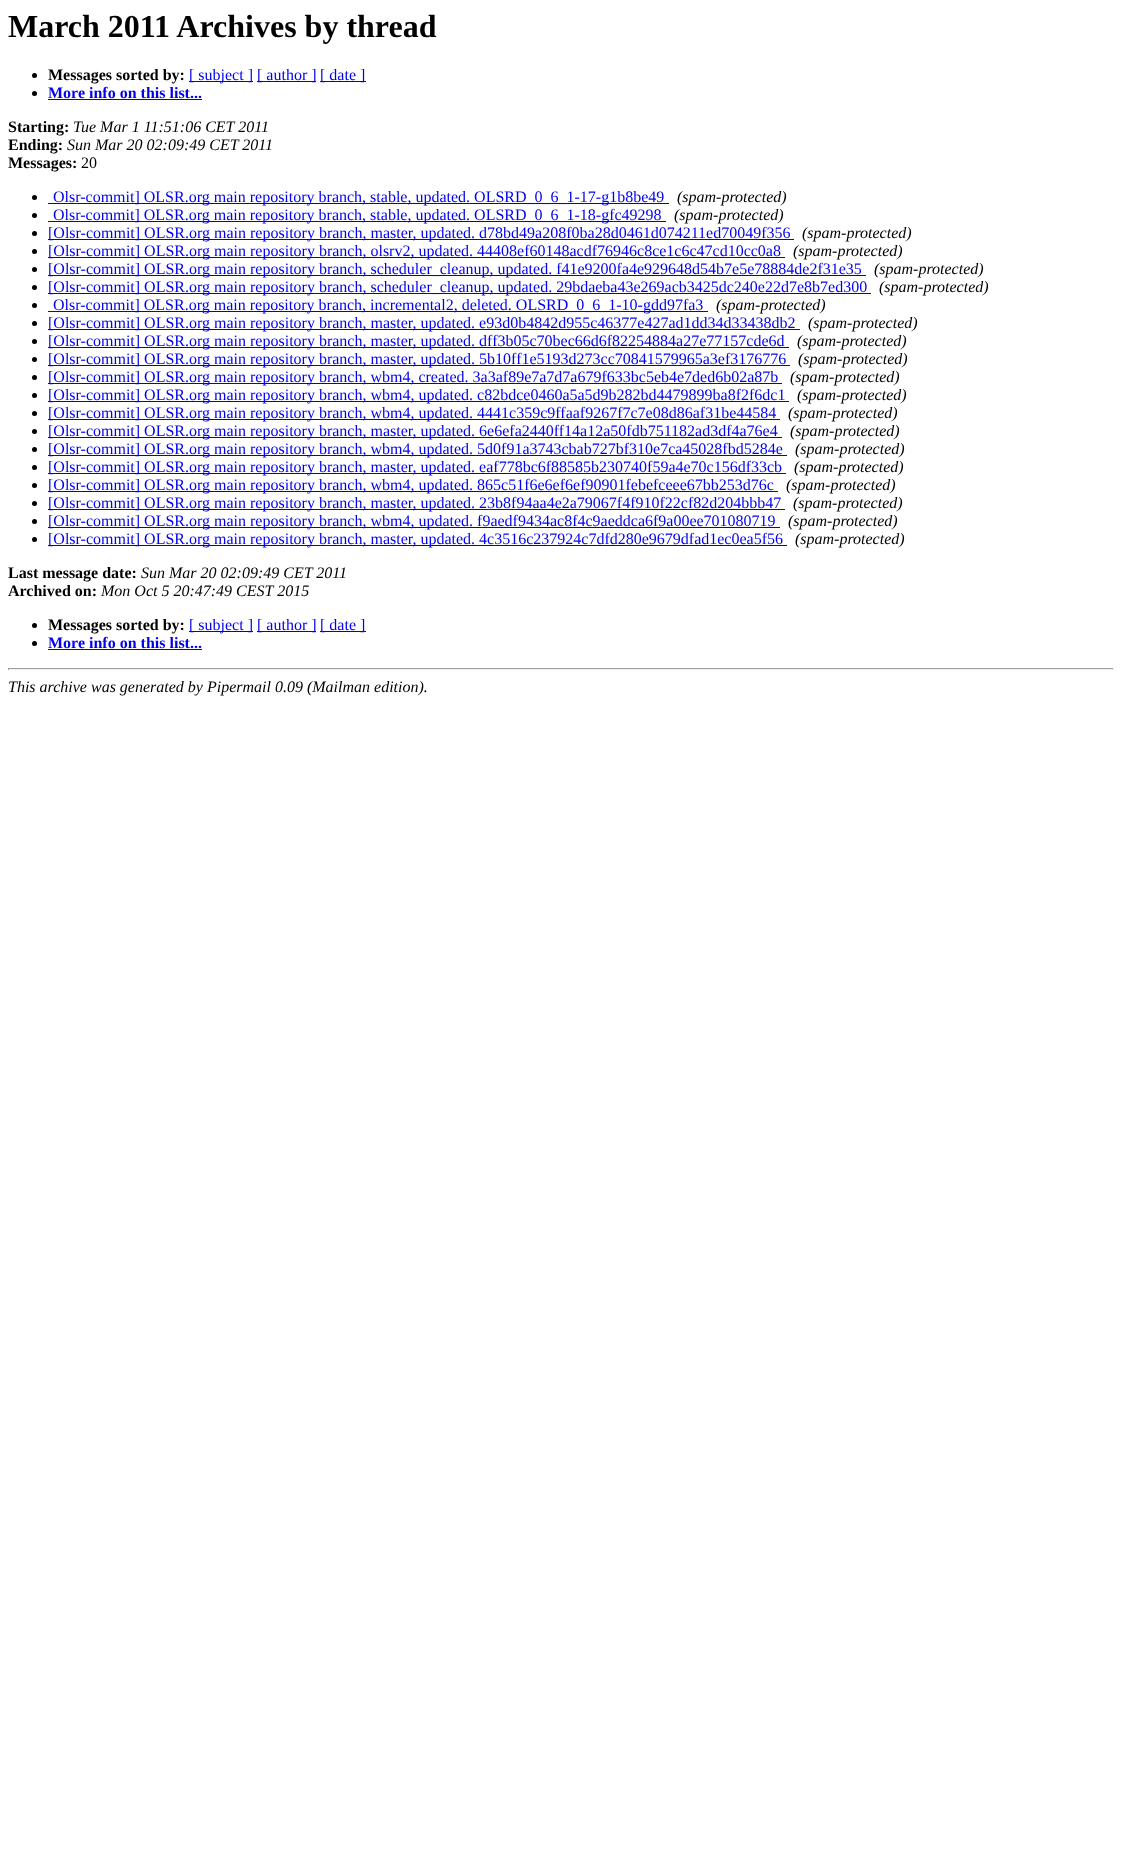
async function draw(canvas) {
  canvas.width = 1122
  canvas.height = 1852
  const ctx = canvas.getContext('2d')
  ctx.miterLimit = 4
  ctx.fontKerning = 'normal'

  ctx.fillStyle = '#fff'
  ctx.fillRect(0, 0, 1122, 1852)
  ctx.font = 'bold 32px Liberation Serif'
  ctx.fillStyle = '#000'
  ctx.fillText('March 2011 Archives by thread', 8, 37)
  ctx.beginPath()
  ctx.arc(34.5, 75.5, 2.5, 0, 2 * Math.PI)
  ctx.fill()
  ctx.font = 'bold 16px Liberation Serif'
  ctx.fillText('Messages sorted by:', 48, 80)
  ctx.fillStyle = '#00e'
  ctx.fillRect(189, 81, 64, 1)
  ctx.font = '16px Liberation Serif'
  ctx.fillText('[ subject ]', 189, 80)
  ctx.fillRect(257, 81, 59, 1)
  ctx.fillText('[ author ]', 257, 80)
  ctx.fillRect(320, 81, 46, 1)
  ctx.fillText('[ date ]', 320, 80)
  ctx.fillStyle = '#000'
  ctx.beginPath()
  ctx.arc(34.5, 93.5, 2.5, 0, 2 * Math.PI)
  ctx.fill()
  ctx.font = 'bold 16px Liberation Serif'
  ctx.fillStyle = '#00e'
  ctx.fillText('More info on this list...', 48, 98)
  ctx.fillRect(48, 99, 154, 1)
  ctx.fillStyle = '#000'
  ctx.fillText('Starting:', 8, 132)
  ctx.font = 'italic 16px Liberation Serif'
  ctx.fillText('Tue Mar 1 11:51:06 CET 2011', 73, 132)
  ctx.font = 'bold 16px Liberation Serif'
  ctx.fillText('Ending:', 8, 150)
  ctx.font = 'italic 16px Liberation Serif'
  ctx.fillText('Sun Mar 20 02:09:49 CET 2011', 67, 150)
  ctx.font = 'bold 16px Liberation Serif'
  ctx.fillText('Messages:', 8, 168)
  ctx.font = '16px Liberation Serif'
  ctx.fillText('20', 81, 168)
  ctx.beginPath()
  ctx.arc(34.5, 197.5, 2.5, 0, 2 * Math.PI)
  ctx.fill()
  ctx.fillStyle = '#00e'
  ctx.fillRect(48, 203, 621, 1)
  ctx.fillText('Olsr-commit] OLSR.org main repository branch, stable, updated. OLSRD_0_6_1-17-g1b8be49', 53, 202)
  ctx.font = 'italic 16px Liberation Serif'
  ctx.fillStyle = '#000'
  ctx.fillText('(spam-protected)', 677, 202)
  ctx.beginPath()
  ctx.arc(34.5, 215.5, 2.5, 0, 2 * Math.PI)
  ctx.fill()
  ctx.fillStyle = '#00e'
  ctx.fillRect(48, 221, 618, 1)
  ctx.font = '16px Liberation Serif'
  ctx.fillText('Olsr-commit] OLSR.org main repository branch, stable, updated. OLSRD_0_6_1-18-gfc49298', 53, 220)
  ctx.font = 'italic 16px Liberation Serif'
  ctx.fillStyle = '#000'
  ctx.fillText('(spam-protected)', 674, 220)
  ctx.beginPath()
  ctx.arc(34.5, 233.5, 2.5, 0, 2 * Math.PI)
  ctx.fill()
  ctx.fillStyle = '#00e'
  ctx.fillRect(48, 239, 746, 1)
  ctx.font = '16px Liberation Serif'
  ctx.fillText('[Olsr-commit] OLSR.org main repository branch, master, updated. d78bd49a208f0ba28d0461d074211ed70049f356', 48, 238)
  ctx.font = 'italic 16px Liberation Serif'
  ctx.fillStyle = '#000'
  ctx.fillText('(spam-protected)', 802, 238)
  ctx.beginPath()
  ctx.arc(34.5, 251.5, 2.5, 0, 2 * Math.PI)
  ctx.fill()
  ctx.fillStyle = '#00e'
  ctx.fillRect(48, 257, 737, 1)
  ctx.font = '16px Liberation Serif'
  ctx.fillText('[Olsr-commit] OLSR.org main repository branch, olsrv2, updated. 44408ef60148acdf76946c8ce1c6c47cd10cc0a8', 48, 256)
  ctx.font = 'italic 16px Liberation Serif'
  ctx.fillStyle = '#000'
  ctx.fillText('(spam-protected)', 793, 256)
  ctx.beginPath()
  ctx.arc(34.5, 269.5, 2.5, 0, 2 * Math.PI)
  ctx.fill()
  ctx.fillStyle = '#00e'
  ctx.fillRect(48, 275, 818, 1)
  ctx.font = '16px Liberation Serif'
  ctx.fillText('[Olsr-commit] OLSR.org main repository branch, scheduler_cleanup, updated. f41e9200fa4e929648d54b7e5e78884de2f31e35', 48, 274)
  ctx.font = 'italic 16px Liberation Serif'
  ctx.fillStyle = '#000'
  ctx.fillText('(spam-protected)', 874, 274)
  ctx.beginPath()
  ctx.arc(34.5, 287.5, 2.5, 0, 2 * Math.PI)
  ctx.fill()
  ctx.fillStyle = '#00e'
  ctx.fillRect(48, 293, 823, 1)
  ctx.font = '16px Liberation Serif'
  ctx.fillText('[Olsr-commit] OLSR.org main repository branch, scheduler_cleanup, updated. 29bdaeba43e269acb3425dc240e22d7e8b7ed300', 48, 292)
  ctx.font = 'italic 16px Liberation Serif'
  ctx.fillStyle = '#000'
  ctx.fillText('(spam-protected)', 879, 292)
  ctx.beginPath()
  ctx.arc(34.5, 305.5, 2.5, 0, 2 * Math.PI)
  ctx.fill()
  ctx.fillStyle = '#00e'
  ctx.fillRect(48, 311, 660, 1)
  ctx.font = '16px Liberation Serif'
  ctx.fillText('Olsr-commit] OLSR.org main repository branch, incremental2, deleted. OLSRD_0_6_1-10-gdd97fa3', 53, 310)
  ctx.font = 'italic 16px Liberation Serif'
  ctx.fillStyle = '#000'
  ctx.fillText('(spam-protected)', 716, 310)
  ctx.beginPath()
  ctx.arc(34.5, 323.5, 2.5, 0, 2 * Math.PI)
  ctx.fill()
  ctx.fillStyle = '#00e'
  ctx.fillRect(48, 329, 752, 1)
  ctx.font = '16px Liberation Serif'
  ctx.fillText('[Olsr-commit] OLSR.org main repository branch, master, updated. e93d0b4842d955c46377e427ad1dd34d33438db2', 48, 328)
  ctx.font = 'italic 16px Liberation Serif'
  ctx.fillStyle = '#000'
  ctx.fillText('(spam-protected)', 808, 328)
  ctx.beginPath()
  ctx.arc(34.5, 341.5, 2.5, 0, 2 * Math.PI)
  ctx.fill()
  ctx.fillStyle = '#00e'
  ctx.fillRect(48, 347, 741, 1)
  ctx.font = '16px Liberation Serif'
  ctx.fillText('[Olsr-commit] OLSR.org main repository branch, master, updated. dff3b05c70bec66d6f82254884a27e77157cde6d', 48, 346)
  ctx.font = 'italic 16px Liberation Serif'
  ctx.fillStyle = '#000'
  ctx.fillText('(spam-protected)', 797, 346)
  ctx.beginPath()
  ctx.arc(34.5, 359.5, 2.5, 0, 2 * Math.PI)
  ctx.fill()
  ctx.fillStyle = '#00e'
  ctx.fillRect(48, 365, 742, 1)
  ctx.font = '16px Liberation Serif'
  ctx.fillText('[Olsr-commit] OLSR.org main repository branch, master, updated. 5b10ff1e5193d273cc70841579965a3ef3176776', 48, 364)
  ctx.font = 'italic 16px Liberation Serif'
  ctx.fillStyle = '#000'
  ctx.fillText('(spam-protected)', 798, 364)
  ctx.beginPath()
  ctx.arc(34.5, 377.5, 2.5, 0, 2 * Math.PI)
  ctx.fill()
  ctx.fillStyle = '#00e'
  ctx.fillRect(48, 383, 734, 1)
  ctx.font = '16px Liberation Serif'
  ctx.fillText('[Olsr-commit] OLSR.org main repository branch, wbm4, created. 3a3af89e7a7d7a679f633bc5eb4e7ded6b02a87b', 48, 382)
  ctx.font = 'italic 16px Liberation Serif'
  ctx.fillStyle = '#000'
  ctx.fillText('(spam-protected)', 790, 382)
  ctx.beginPath()
  ctx.arc(34.5, 395.5, 2.5, 0, 2 * Math.PI)
  ctx.fill()
  ctx.fillStyle = '#00e'
  ctx.fillRect(48, 401, 741, 1)
  ctx.font = '16px Liberation Serif'
  ctx.fillText('[Olsr-commit] OLSR.org main repository branch, wbm4, updated. c82bdce0460a5a5d9b282bd4479899ba8f2f6dc1', 48, 400)
  ctx.font = 'italic 16px Liberation Serif'
  ctx.fillStyle = '#000'
  ctx.fillText('(spam-protected)', 797, 400)
  ctx.beginPath()
  ctx.arc(34.5, 413.5, 2.5, 0, 2 * Math.PI)
  ctx.fill()
  ctx.fillStyle = '#00e'
  ctx.fillRect(48, 419, 732, 1)
  ctx.font = '16px Liberation Serif'
  ctx.fillText('[Olsr-commit] OLSR.org main repository branch, wbm4, updated. 4441c359c9ffaaf9267f7c7e08d86af31be44584', 48, 418)
  ctx.font = 'italic 16px Liberation Serif'
  ctx.fillStyle = '#000'
  ctx.fillText('(spam-protected)', 788, 418)
  ctx.beginPath()
  ctx.arc(34.5, 431.5, 2.5, 0, 2 * Math.PI)
  ctx.fill()
  ctx.fillStyle = '#00e'
  ctx.fillRect(48, 437, 734, 1)
  ctx.font = '16px Liberation Serif'
  ctx.fillText('[Olsr-commit] OLSR.org main repository branch, master, updated. 6e6efa2440ff14a12a50fdb751182ad3df4a76e4', 48, 436)
  ctx.font = 'italic 16px Liberation Serif'
  ctx.fillStyle = '#000'
  ctx.fillText('(spam-protected)', 790, 436)
  ctx.beginPath()
  ctx.arc(34.5, 449.5, 2.5, 0, 2 * Math.PI)
  ctx.fill()
  ctx.fillStyle = '#00e'
  ctx.fillRect(48, 455, 739, 1)
  ctx.font = '16px Liberation Serif'
  ctx.fillText('[Olsr-commit] OLSR.org main repository branch, wbm4, updated. 5d0f91a3743cbab727bf310e7ca45028fbd5284e', 48, 454)
  ctx.font = 'italic 16px Liberation Serif'
  ctx.fillStyle = '#000'
  ctx.fillText('(spam-protected)', 795, 454)
  ctx.beginPath()
  ctx.arc(34.5, 467.5, 2.5, 0, 2 * Math.PI)
  ctx.fill()
  ctx.fillStyle = '#00e'
  ctx.fillRect(48, 473, 738, 1)
  ctx.font = '16px Liberation Serif'
  ctx.fillText('[Olsr-commit] OLSR.org main repository branch, master, updated. eaf778bc6f88585b230740f59a4e70c156df33cb', 48, 472)
  ctx.font = 'italic 16px Liberation Serif'
  ctx.fillStyle = '#000'
  ctx.fillText('(spam-protected)', 794, 472)
  ctx.beginPath()
  ctx.arc(34.5, 485.5, 2.5, 0, 2 * Math.PI)
  ctx.fill()
  ctx.fillStyle = '#00e'
  ctx.fillRect(48, 491, 730, 1)
  ctx.font = '16px Liberation Serif'
  ctx.fillText('[Olsr-commit] OLSR.org main repository branch, wbm4, updated. 865c51f6e6ef6ef90901febefceee67bb253d76c', 48, 490)
  ctx.font = 'italic 16px Liberation Serif'
  ctx.fillStyle = '#000'
  ctx.fillText('(spam-protected)', 786, 490)
  ctx.beginPath()
  ctx.arc(34.5, 503.5, 2.5, 0, 2 * Math.PI)
  ctx.fill()
  ctx.fillStyle = '#00e'
  ctx.fillRect(48, 509, 737, 1)
  ctx.font = '16px Liberation Serif'
  ctx.fillText('[Olsr-commit] OLSR.org main repository branch, master, updated. 23b8f94aa4e2a79067f4f910f22cf82d204bbb47', 48, 508)
  ctx.font = 'italic 16px Liberation Serif'
  ctx.fillStyle = '#000'
  ctx.fillText('(spam-protected)', 793, 508)
  ctx.beginPath()
  ctx.arc(34.5, 521.5, 2.5, 0, 2 * Math.PI)
  ctx.fill()
  ctx.fillStyle = '#00e'
  ctx.fillRect(48, 527, 732, 1)
  ctx.font = '16px Liberation Serif'
  ctx.fillText('[Olsr-commit] OLSR.org main repository branch, wbm4, updated. f9aedf9434ac8f4c9aeddca6f9a00ee701080719', 48, 526)
  ctx.font = 'italic 16px Liberation Serif'
  ctx.fillStyle = '#000'
  ctx.fillText('(spam-protected)', 788, 526)
  ctx.beginPath()
  ctx.arc(34.5, 539.5, 2.5, 0, 2 * Math.PI)
  ctx.fill()
  ctx.fillStyle = '#00e'
  ctx.fillRect(48, 545, 739, 1)
  ctx.font = '16px Liberation Serif'
  ctx.fillText('[Olsr-commit] OLSR.org main repository branch, master, updated. 4c3516c237924c7dfd280e9679dfad1ec0ea5f56', 48, 544)
  ctx.font = 'italic 16px Liberation Serif'
  ctx.fillStyle = '#000'
  ctx.fillText('(spam-protected)', 795, 544)
  ctx.font = 'bold 16px Liberation Serif'
  ctx.fillText('Last message date:', 8, 578)
  ctx.font = 'italic 16px Liberation Serif'
  ctx.fillText('Sun Mar 20 02:09:49 CET 2011', 141, 578)
  ctx.font = 'bold 16px Liberation Serif'
  ctx.fillText('Archived on:', 8, 596)
  ctx.font = 'italic 16px Liberation Serif'
  ctx.fillText('Mon Oct 5 20:47:49 CEST 2015', 101, 596)
  ctx.beginPath()
  ctx.arc(34.5, 625.5, 2.5, 0, 2 * Math.PI)
  ctx.fill()
  ctx.font = 'bold 16px Liberation Serif'
  ctx.fillText('Messages sorted by:', 48, 630)
  ctx.fillStyle = '#00e'
  ctx.fillRect(189, 631, 64, 1)
  ctx.font = '16px Liberation Serif'
  ctx.fillText('[ subject ]', 189, 630)
  ctx.fillRect(257, 631, 59, 1)
  ctx.fillText('[ author ]', 257, 630)
  ctx.fillRect(320, 631, 46, 1)
  ctx.fillText('[ date ]', 320, 630)
  ctx.fillStyle = '#000'
  ctx.beginPath()
  ctx.arc(34.5, 643.5, 2.5, 0, 2 * Math.PI)
  ctx.fill()
  ctx.font = 'bold 16px Liberation Serif'
  ctx.fillStyle = '#00e'
  ctx.fillText('More info on this list...', 48, 648)
  ctx.fillRect(48, 649, 154, 1)
  ctx.fillStyle = '#9f9f9f'
  ctx.fillRect(8, 668, 1106, 1)
  ctx.fillStyle = '#eee'
  ctx.fillRect(1113, 668, 1, 2)
  ctx.fillRect(8, 669, 1106, 1)
  ctx.fillStyle = '#9f9f9f'
  ctx.fillRect(8, 668, 1, 2)
  ctx.font = 'italic 16px Liberation Serif'
  ctx.fillStyle = '#000'
  ctx.fillText('This archive was generated by Pipermail 0.09 (Mailman edition).', 8, 692)
}

draw(document.querySelector('canvas'))
